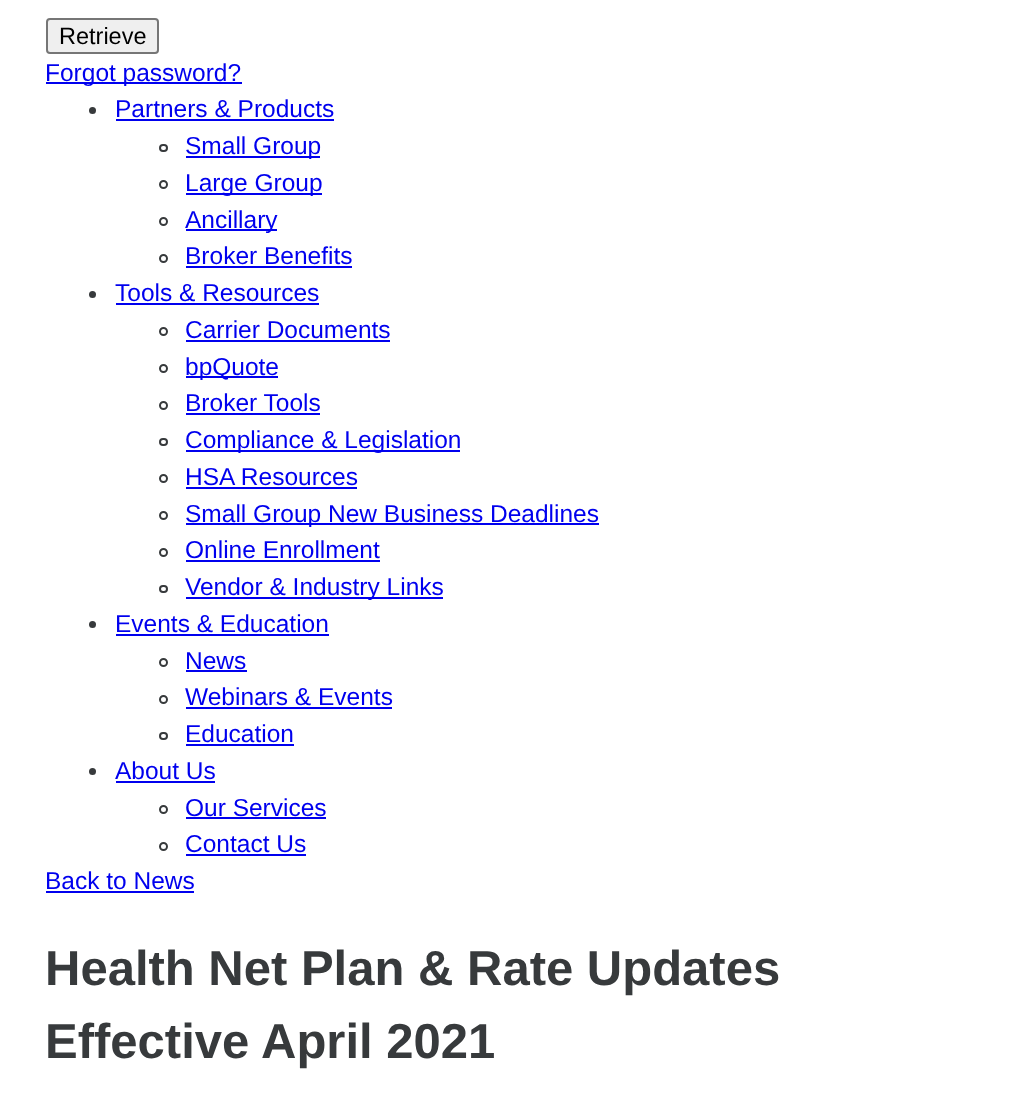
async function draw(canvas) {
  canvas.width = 1033
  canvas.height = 1099
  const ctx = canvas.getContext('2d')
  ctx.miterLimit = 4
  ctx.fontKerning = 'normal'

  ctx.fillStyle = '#fff'
  ctx.fillRect(0, 0, 1033, 1099)
  ctx.fillStyle = '#efefef'
  ctx.beginPath()
  ctx.roundRect(47, 19, 111, 34, 3)
  ctx.fill()
  ctx.strokeStyle = '#767676'
  ctx.lineWidth = 2
  ctx.stroke()
  ctx.font = '23.5px Liberation Sans'
  ctx.fillStyle = '#000'
  ctx.fillText('Retrieve', 59, 44)
  ctx.fillStyle = '#00e'
  ctx.fillRect(46, 82, 196, 2)
  ctx.font = '24.5px Liberation Sans'
  ctx.fillText('Forgot password?', 45, 81)
  ctx.fillStyle = '#373a3c'
  ctx.beginPath()
  ctx.arc(92.5, 110.5, 3.5, 0, 2 * Math.PI)
  ctx.fill()
  ctx.fillStyle = '#00e'
  ctx.fillText('Partners & Products', 115, 117)
  ctx.fillRect(116, 119, 218, 2)
  ctx.beginPath()
  ctx.roundRect(160, 145, 7, 6, 3)
  ctx.strokeStyle = '#373a3c'
  ctx.stroke()
  ctx.fillRect(186, 156, 134, 2)
  ctx.fillText('Small Group', 185, 154)
  ctx.beginPath()
  ctx.arc(163.5, 184.5, 3.5, 0, 2 * Math.PI)
  ctx.stroke()
  ctx.fillRect(186, 193, 136, 2)
  ctx.fillText('Large Group', 185, 191)
  ctx.beginPath()
  ctx.arc(163.5, 221.5, 3.5, 0, 2 * Math.PI)
  ctx.stroke()
  ctx.fillRect(186, 229, 91, 2)
  ctx.fillText('Ancillary', 185, 228)
  ctx.beginPath()
  ctx.arc(163.5, 258.5, 3.5, 0, 2 * Math.PI)
  ctx.stroke()
  ctx.fillText('Broker Benefits', 185, 264)
  ctx.fillRect(186, 266, 166, 2)
  ctx.fillStyle = '#373a3c'
  ctx.beginPath()
  ctx.arc(92.5, 294.5, 3.5, 0, 2 * Math.PI)
  ctx.fill()
  ctx.fillStyle = '#00e'
  ctx.fillText('Tools & Resources', 115, 301)
  ctx.fillRect(116, 303, 203, 2)
  ctx.beginPath()
  ctx.arc(163.5, 331.5, 3.5, 0, 2 * Math.PI)
  ctx.stroke()
  ctx.fillText('Carrier Documents', 185, 338)
  ctx.fillRect(186, 340, 204, 2)
  ctx.beginPath()
  ctx.arc(163.5, 368.5, 3.5, 0, 2 * Math.PI)
  ctx.stroke()
  ctx.fillRect(186, 376, 92, 2)
  ctx.fillText('bpQuote', 185, 375)
  ctx.beginPath()
  ctx.arc(163.5, 405.5, 3.5, 0, 2 * Math.PI)
  ctx.stroke()
  ctx.fillText('Broker Tools', 185, 411)
  ctx.fillRect(186, 413, 134, 2)
  ctx.beginPath()
  ctx.roundRect(160, 439, 7, 6, 3)
  ctx.stroke()
  ctx.fillRect(186, 450, 274, 2)
  ctx.fillText('Compliance & Legislation', 185, 448)
  ctx.beginPath()
  ctx.arc(163.5, 478.5, 3.5, 0, 2 * Math.PI)
  ctx.stroke()
  ctx.fillText('HSA Resources', 185, 485)
  ctx.fillRect(186, 487, 171, 2)
  ctx.beginPath()
  ctx.arc(163.5, 515.5, 3.5, 0, 2 * Math.PI)
  ctx.stroke()
  ctx.fillRect(186, 523, 413, 2)
  ctx.fillText('Small Group New Business Deadlines', 185, 522)
  ctx.beginPath()
  ctx.arc(163.5, 552.5, 3.5, 0, 2 * Math.PI)
  ctx.stroke()
  ctx.fillText('Online Enrollment', 185, 558)
  ctx.fillRect(186, 560, 194, 2)
  ctx.beginPath()
  ctx.roundRect(160, 586, 7, 6, 3)
  ctx.stroke()
  ctx.fillRect(186, 597, 257, 2)
  ctx.fillText('Vendor & Industry Links', 185, 595)
  ctx.fillStyle = '#373a3c'
  ctx.beginPath()
  ctx.arc(92.5, 624.5, 3.5, 0, 2 * Math.PI)
  ctx.fill()
  ctx.fillStyle = '#00e'
  ctx.fillText('Events & Education', 115, 632)
  ctx.fillRect(116, 634, 213, 2)
  ctx.beginPath()
  ctx.arc(163.5, 662.5, 3.5, 0, 2 * Math.PI)
  ctx.stroke()
  ctx.fillText('News', 185, 669)
  ctx.fillRect(186, 670, 61, 2)
  ctx.beginPath()
  ctx.arc(163.5, 699.5, 3.5, 0, 2 * Math.PI)
  ctx.stroke()
  ctx.fillText('Webinars & Events', 185, 705)
  ctx.fillRect(186, 707, 206, 2)
  ctx.beginPath()
  ctx.roundRect(160, 733, 7, 6, 3)
  ctx.stroke()
  ctx.fillText('Education', 185, 742)
  ctx.fillRect(186, 744, 108, 2)
  ctx.fillStyle = '#373a3c'
  ctx.beginPath()
  ctx.arc(92.5, 771.5, 3.5, 0, 2 * Math.PI)
  ctx.fill()
  ctx.fillStyle = '#00e'
  ctx.fillText('About Us', 115, 779)
  ctx.fillRect(116, 781, 99, 2)
  ctx.beginPath()
  ctx.arc(163.5, 809.5, 3.5, 0, 2 * Math.PI)
  ctx.stroke()
  ctx.fillText('Our Services', 185, 816)
  ctx.fillRect(186, 817, 140, 2)
  ctx.beginPath()
  ctx.arc(163.5, 846.5, 3.5, 0, 2 * Math.PI)
  ctx.stroke()
  ctx.fillText('Contact Us', 185, 852)
  ctx.fillRect(186, 854, 120, 2)
  ctx.fillText('Back to News', 45, 889)
  ctx.fillRect(46, 891, 148, 2)
  ctx.font = 'bold 49px Liberation Sans'
  ctx.fillStyle = '#373a3c'
  ctx.fillText('Health Net Plan & Rate Updates', 45, 985)
  ctx.fillText('Effective April 2021', 45, 1058)
}

draw(document.querySelector('canvas'))
